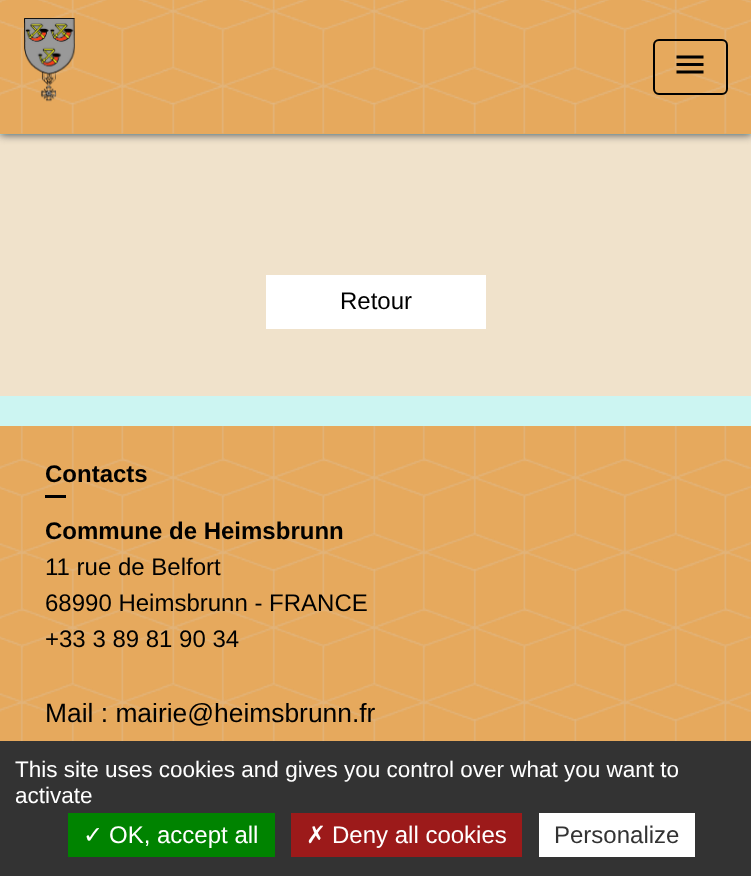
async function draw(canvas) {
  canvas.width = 751
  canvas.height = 876
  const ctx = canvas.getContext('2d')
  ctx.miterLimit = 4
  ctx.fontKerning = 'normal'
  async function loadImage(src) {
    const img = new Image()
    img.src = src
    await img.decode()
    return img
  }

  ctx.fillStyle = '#ccf5f2'
  ctx.fillRect(0, 0, 751, 876)
  ctx.fillStyle = '#f0e2cb'
  ctx.fillRect(0, 135, 751, 261)
  ctx.fillStyle = '#535353'
  ctx.filter = 'blur(4.5px)'
  ctx.beginPath()
  ctx.rect(0, 2, 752, 133)
  ctx.fill()
  ctx.filter = 'none'
  ctx.fillStyle = '#e6a95d'
  ctx.fillRect(0, 0, 751, 134)
  ctx.drawImage(await loadImage('image0.png'), 0, 0, 751, 134)
  ctx.drawImage(await loadImage('image1.png'), 24, 18, 51, 84)
  ctx.beginPath()
  ctx.roundRect(654, 40, 73, 54, 5)
  ctx.strokeStyle = '#000'
  ctx.lineWidth = 2
  ctx.stroke()
  ctx.drawImage(await loadImage('image2.png'), 676, 55, 28, 19)
  ctx.fillStyle = '#fff'
  ctx.fillRect(266, 275, 220, 54)
  ctx.font = '24px Liberation Sans'
  ctx.fillStyle = '#000'
  ctx.fillText('Retour', 340, 309)
  ctx.fillStyle = '#e6a95d'
  ctx.fillRect(0, 426, 751, 315)
  ctx.drawImage(await loadImage('image3.png'), 0, 426, 751, 315)
  ctx.font = 'bold 24px Liberation Sans'
  ctx.fillStyle = '#000'
  ctx.fillText('Contacts', 45, 482)
  ctx.fillRect(45, 495, 21, 3)
  ctx.fillText('Commune de Heimsbrunn', 45, 539)
  ctx.font = '24px Liberation Sans'
  ctx.fillText('11 rue de Belfort', 45, 575)
  ctx.fillText('68990 Heimsbrunn - FRANCE', 45, 611)
  ctx.fillText('+33 3 89 81 90 34', 45, 647)
  ctx.font = '26.4px Liberation Sans'
  ctx.fillText('Mail : mairie@heimsbrunn.fr', 45, 722)
  ctx.fillStyle = '#333'
  ctx.fillRect(0, 741, 751, 135)
  ctx.font = '22.5px Liberation Sans'
  ctx.fillStyle = '#fff'
  ctx.fillText('This site uses cookies and gives you control over what you want to', 15, 777)
  ctx.fillText('activate', 15, 803)
  ctx.fillStyle = '#008300'
  ctx.fillRect(68, 813, 207, 44)
  ctx.font = '24px DejaVu Sans'
  ctx.fillStyle = '#fff'
  ctx.fillText('✓', 83, 843)
  ctx.font = '24px Liberation Sans'
  ctx.fillText('OK, accept all', 109, 843)
  ctx.fillStyle = '#9c1a1a'
  ctx.fillRect(291, 813, 231, 44)
  ctx.font = '24px DejaVu Sans'
  ctx.fillStyle = '#fff'
  ctx.fillText('✗', 306, 843)
  ctx.font = '24px Liberation Sans'
  ctx.fillText('Deny all cookies', 332, 843)
  ctx.fillRect(539, 813, 156, 44)
  ctx.fillStyle = '#333'
  ctx.fillText('Personalize', 554, 843)
}

draw(document.querySelector('canvas'))
